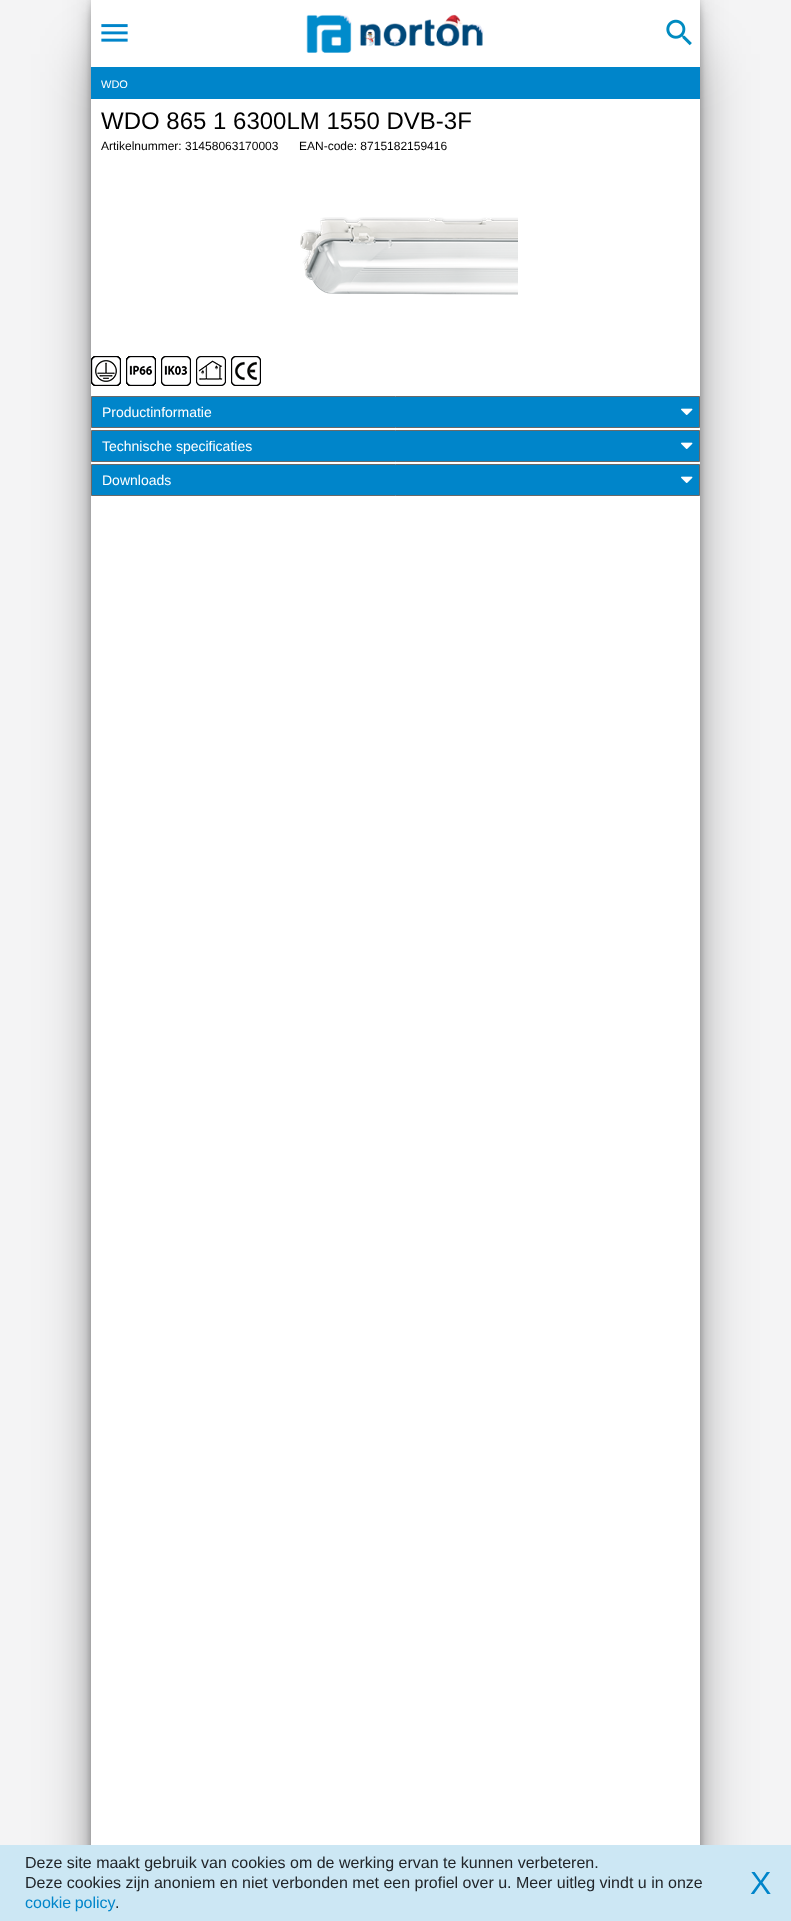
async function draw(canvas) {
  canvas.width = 791
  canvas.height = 1921
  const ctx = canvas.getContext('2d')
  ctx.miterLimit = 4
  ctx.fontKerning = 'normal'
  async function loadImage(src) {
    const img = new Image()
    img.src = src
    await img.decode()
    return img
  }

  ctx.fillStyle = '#f4f4f5'
  ctx.fillRect(0, 0, 791, 1921)
  ctx.fillStyle = '#00000017'
  ctx.filter = 'blur(2.5px)'
  ctx.beginPath()
  ctx.rect(91, -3, 609, 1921)
  ctx.fill()
  ctx.filter = 'none'
  ctx.fillStyle = '#0000002b'
  ctx.filter = 'blur(6.5px)'
  ctx.beginPath()
  ctx.rect(91, 12, 609, 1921)
  ctx.fill()
  ctx.filter = 'none'
  ctx.fillStyle = '#0000001f'
  ctx.filter = 'blur(3px)'
  ctx.beginPath()
  ctx.rect(91, 4, 609, 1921)
  ctx.fill()
  ctx.filter = 'none'
  ctx.filter = 'blur(15px)'
  ctx.beginPath()
  ctx.rect(91, -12, 609, 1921)
  ctx.fill()
  ctx.filter = 'none'
  ctx.fillStyle = '#00000040'
  ctx.filter = 'blur(27.5px)'
  ctx.beginPath()
  ctx.rect(91, 54, 609, 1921)
  ctx.fill()
  ctx.filter = 'none'
  ctx.fillStyle = '#fff'
  ctx.fillRect(91, 0, 609, 1845)
  ctx.fillStyle = '#0085ca'
  ctx.fillRect(91, 67, 609, 32)
  ctx.drawImage(await loadImage('image0.png'), 101, 24, 27, 18)
  ctx.drawImage(await loadImage('image1.png'), 306, 14, 178, 39)
  ctx.drawImage(await loadImage('image2.png'), 666, 19, 26, 27)
  ctx.font = '11px Liberation Sans'
  ctx.fillStyle = '#fff'
  ctx.fillText('WDO', 101, 88)
  ctx.font = '24px Liberation Sans'
  ctx.fillStyle = '#000'
  ctx.fillText('WDO 865 1 6300LM 1550 DVB-3F', 101, 129)
  ctx.font = '12px Liberation Sans'
  ctx.fillText('Artikelnummer: 31458063170003', 101, 150)
  ctx.fillText('EAN-code: 8715182159416', 299, 150)
  ctx.drawImage(await loadImage('image3.png'), 300, 217, 218, 78)
  ctx.drawImage(await loadImage('image4.png'), 91, 356, 30, 30)
  ctx.drawImage(await loadImage('image5.png'), 126, 356, 30, 30)
  ctx.drawImage(await loadImage('image6.png'), 161, 356, 30, 30)
  ctx.drawImage(await loadImage('image7.png'), 196, 356, 30, 30)
  ctx.drawImage(await loadImage('image8.png'), 231, 356, 30, 30)
  ctx.fillStyle = '#0085ca'
  ctx.beginPath()
  ctx.rect(91.5, 396.5, 608, 31)
  ctx.fill()
  ctx.strokeStyle = '#696969'
  ctx.stroke()
  ctx.font = '14px Liberation Sans'
  ctx.fillStyle = '#fff'
  ctx.fillText('Productinformatie', 102, 417)
  ctx.drawImage(await loadImage('image9.png'), 681, 408, 12, 7)
  ctx.fillStyle = '#0085ca'
  ctx.beginPath()
  ctx.rect(91.5, 430.5, 608, 31)
  ctx.fill()
  ctx.stroke()
  ctx.fillStyle = '#fff'
  ctx.fillText('Technische specificaties', 102, 451)
  ctx.drawImage(await loadImage('image9.png'), 681, 442, 12, 7)
  ctx.fillStyle = '#0085ca'
  ctx.beginPath()
  ctx.rect(91.5, 464.5, 608, 31)
  ctx.fill()
  ctx.stroke()
  ctx.fillStyle = '#fff'
  ctx.fillText('Downloads', 102, 485)
  ctx.drawImage(await loadImage('image9.png'), 681, 476, 12, 7)
  ctx.fillStyle = '#cce7f4'
  ctx.fillRect(0, 1845, 791, 76)
  ctx.font = '16px Liberation Sans'
  ctx.fillStyle = '#212529'
  ctx.fillText('Deze site maakt gebruik van cookies om de werking ervan te kunnen verbeteren.', 25, 1868)
  ctx.fillText('Deze cookies zijn anoniem en niet verbonden met een profiel over u. Meer uitleg vindt u in onze', 25, 1888)
  ctx.wordSpacing = '-1px'
  ctx.fillStyle = '#0085ca'
  ctx.fillText('cookie policy', 25, 1908)
  ctx.wordSpacing = '0px'
  ctx.fillStyle = '#212529'
  ctx.fillText('.', 115, 1908)
  ctx.font = '32px Liberation Sans'
  ctx.fillStyle = '#0085ca'
  ctx.fillText('X', 750, 1894)
}

draw(document.querySelector('canvas'))
